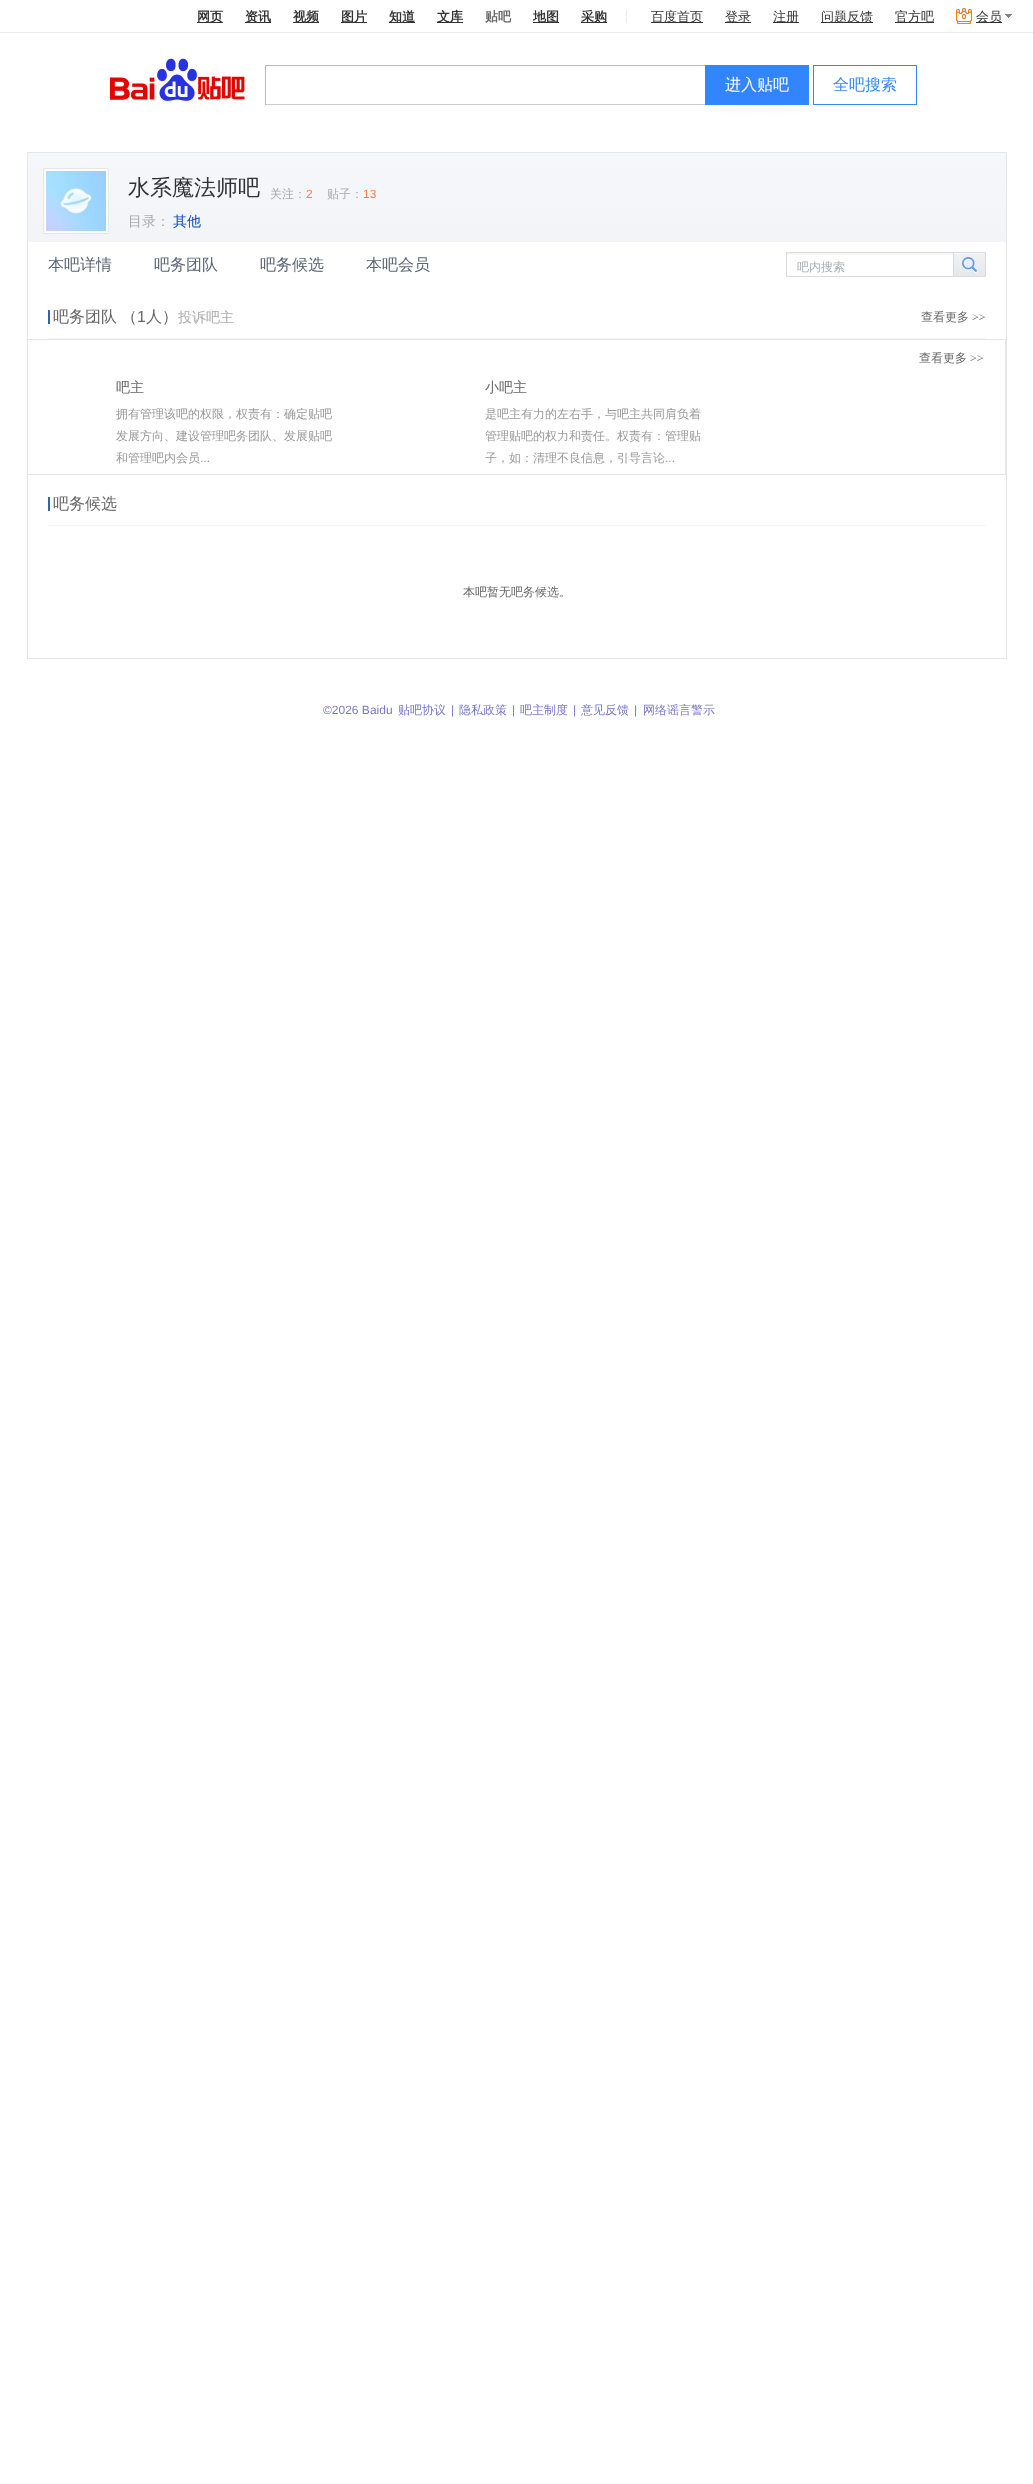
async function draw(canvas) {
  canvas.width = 1033
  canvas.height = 2484
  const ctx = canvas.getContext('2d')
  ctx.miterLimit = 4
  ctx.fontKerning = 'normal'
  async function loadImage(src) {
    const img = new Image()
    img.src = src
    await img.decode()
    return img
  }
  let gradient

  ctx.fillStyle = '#fff'
  ctx.fillRect(0, 0, 1033, 2484)
  ctx.fillStyle = '#ebebeb'
  ctx.fillRect(626, 10, 1, 13)
  ctx.fillStyle = '#333'
  ctx.fillRect(651, 22, 52, 1)
  ctx.font = '500 13px WenQuanYi Zen Hei'
  ctx.fillText('百度首页', 651, 21)
  ctx.fillRect(725, 22, 26, 1)
  ctx.fillText('登录', 725, 21)
  ctx.fillRect(773, 22, 26, 1)
  ctx.fillText('注册', 773, 21)
  ctx.fillRect(821, 22, 52, 1)
  ctx.fillText('问题反馈', 821, 21)
  ctx.fillRect(895, 22, 39, 1)
  ctx.fillText('官方吧', 895, 21)
  ctx.drawImage(await loadImage('image0.png'), 956, 8, 16, 16)
  ctx.fillRect(976, 22, 26, 1)
  ctx.fillText('会员', 976, 21)
  ctx.drawImage(await loadImage('image1.png'), 1005, 14, 7, 4)
  ctx.fillStyle = '#ebebeb'
  ctx.fillRect(0, 32, 1033, 1)
  ctx.fillStyle = '#333'
  ctx.fillRect(197, 22, 26, 1)
  ctx.font = 'bold 13px WenQuanYi Zen Hei'
  ctx.fillText('网页', 197, 21)
  ctx.fillRect(245, 22, 26, 1)
  ctx.fillText('资讯', 245, 21)
  ctx.fillRect(293, 22, 26, 1)
  ctx.fillText('视频', 293, 21)
  ctx.fillRect(341, 22, 26, 1)
  ctx.fillText('图片', 341, 21)
  ctx.fillRect(389, 22, 26, 1)
  ctx.fillText('知道', 389, 21)
  ctx.fillRect(437, 22, 26, 1)
  ctx.fillText('文库', 437, 21)
  ctx.fillStyle = '#666'
  ctx.fillText('贴吧', 485, 21)
  ctx.fillStyle = '#333'
  ctx.fillRect(533, 22, 26, 1)
  ctx.fillText('地图', 533, 21)
  ctx.fillRect(581, 22, 26, 1)
  ctx.fillText('采购', 581, 21)
  ctx.drawImage(await loadImage('image2.png'), 110, 58, 135, 43)
  ctx.fillStyle = '#b8b8b8'
  ctx.fillRect(265, 65, 441, 1)
  ctx.fillStyle = '#ccc'
  ctx.fillRect(265, 104, 441, 1)
  ctx.fillStyle = '#b8b8b8'
  ctx.fillRect(265, 65, 1, 40)
  ctx.fillStyle = '#3385ff'
  ctx.fillRect(705, 65, 104, 39)
  ctx.fillStyle = '#38f'
  ctx.fillRect(705, 104, 104, 1)
  ctx.font = '500 16px WenQuanYi Zen Hei'
  ctx.fillStyle = '#fff'
  ctx.fillText('进入贴吧', 725, 90)
  ctx.strokeStyle = '#38f'
  ctx.strokeRect(813.5, 65.5, 103, 39)
  ctx.fillStyle = '#38f'
  ctx.fillText('全吧搜索', 833, 90)
  ctx.strokeStyle = '#e6e6e6'
  ctx.strokeRect(27.5, 152.5, 979, 506)
  gradient = ctx.createLinearGradient(517, 153, 517, 242)
  gradient.addColorStop(0, '#f5f7fa')
  gradient.addColorStop(1, '#f2f4f7')
  ctx.fillStyle = gradient
  ctx.fillRect(28, 153, 978, 89)
  ctx.fillStyle = '#fff'
  ctx.beginPath()
  ctx.rect(43.5, 168.5, 65, 65)
  ctx.fill()
  ctx.stroke()
  ctx.drawImage(await loadImage('image3.png'), 46, 171, 60, 60)
  ctx.font = '500 22px WenQuanYi Zen Hei'
  ctx.fillStyle = '#333'
  ctx.fillText('水系魔法师吧', 128, 195)
  ctx.font = '500 12px WenQuanYi Zen Hei'
  ctx.fillStyle = '#aaa'
  ctx.fillText('关注：', 270, 198)
  ctx.font = '12px Liberation Sans'
  ctx.fillStyle = '#ff7f3e'
  ctx.fillText('2', 306, 198)
  ctx.font = '500 12px WenQuanYi Zen Hei'
  ctx.fillStyle = '#aaa'
  ctx.fillText('贴子：', 327, 198)
  ctx.font = '12px Liberation Sans'
  ctx.fillStyle = '#ff7f3e'
  ctx.fillText('13', 363, 198)
  ctx.font = '500 14px WenQuanYi Zen Hei'
  ctx.fillStyle = '#aaa'
  ctx.fillText('目录：', 128, 226)
  ctx.fillStyle = '#0449be'
  ctx.fillText('其他', 173, 226)
  ctx.font = '500 16px WenQuanYi Zen Hei'
  ctx.fillStyle = '#5c6573'
  ctx.fillText('本吧详情', 48, 270)
  ctx.fillText('吧务团队', 154, 270)
  ctx.fillText('吧务候选', 260, 270)
  ctx.fillText('本吧会员', 366, 270)
  ctx.drawImage(await loadImage('image4.png'), 787, 253, 166, 2)
  ctx.fillStyle = '#d9dbde'
  ctx.fillRect(786, 252, 167, 1)
  ctx.fillRect(786, 276, 167, 1)
  ctx.fillRect(786, 252, 1, 25)
  ctx.drawImage(await loadImage('image5.png'), 953, 252, 33, 25)
  ctx.font = '500 12px WenQuanYi Zen Hei'
  ctx.fillStyle = '#aaadb2'
  ctx.fillText('吧内搜索', 797, 271)
  ctx.fillStyle = '#f3f5f7'
  ctx.fillRect(48, 338, 938, 1)
  ctx.fillStyle = '#2d64b3'
  ctx.fillRect(48, 310, 2, 14)
  ctx.font = '500 16px WenQuanYi Zen Hei'
  ctx.fillStyle = '#666'
  ctx.fillText('吧务团队', 53, 322)
  ctx.fillText('（', 121, 322)
  ctx.font = '16px Liberation Sans'
  ctx.fillText('1', 137, 322)
  ctx.font = '500 16px WenQuanYi Zen Hei'
  ctx.fillText('人）', 146, 322)
  ctx.font = '500 14px WenQuanYi Zen Hei'
  ctx.fillStyle = '#aaa'
  ctx.fillText('投诉吧主', 178, 322)
  ctx.font = '500 12px WenQuanYi Zen Hei'
  ctx.fillStyle = '#666'
  ctx.fillText('查看更多', 921, 321)
  ctx.font = '12px Liberation Serif'
  ctx.fillText('>>', 972, 321)
  ctx.fillStyle = '#e5e5e5'
  ctx.fillRect(28, 339, 978, 1)
  ctx.fillStyle = '#e4e6eb'
  ctx.fillRect(1005, 339, 1, 136)
  ctx.fillStyle = '#e5e5e5'
  ctx.fillRect(28, 474, 978, 1)
  ctx.font = '500 12px WenQuanYi Zen Hei'
  ctx.fillStyle = '#666'
  ctx.fillText('查看更多', 919, 362)
  ctx.font = '12px Liberation Serif'
  ctx.fillText('>>', 970, 362)
  ctx.font = '500 14px WenQuanYi Zen Hei'
  ctx.fillText('吧主', 116, 392)
  ctx.font = '500 12px WenQuanYi Zen Hei'
  ctx.fillStyle = '#999'
  ctx.fillText('拥有管理该吧的权限，权责有：确定贴吧', 116, 418)
  ctx.fillText('发展方向、建设管理吧务团队、发展贴吧', 116, 440)
  ctx.fillText('和管理吧内会员', 116, 462)
  ctx.font = '12px Liberation Sans'
  ctx.fillText('...', 200, 462)
  ctx.font = '500 14px WenQuanYi Zen Hei'
  ctx.fillStyle = '#666'
  ctx.fillText('小吧主', 485, 392)
  ctx.font = '500 12px WenQuanYi Zen Hei'
  ctx.fillStyle = '#999'
  ctx.fillText('是吧主有力的左右手，与吧主共同肩负着', 485, 418)
  ctx.fillText('管理贴吧的权力和责任。权责有：管理贴', 485, 440)
  ctx.fillText('子，如：清理不良信息，引导言论', 485, 462)
  ctx.font = '12px Liberation Sans'
  ctx.fillText('...', 665, 462)
  ctx.fillStyle = '#f3f5f7'
  ctx.fillRect(48, 525, 938, 1)
  ctx.fillStyle = '#2d64b3'
  ctx.fillRect(48, 497, 2, 14)
  ctx.font = '500 16px WenQuanYi Zen Hei'
  ctx.fillStyle = '#666'
  ctx.fillText('吧务候选', 53, 509)
  ctx.font = '500 12px WenQuanYi Zen Hei'
  ctx.fillText('本吧暂无吧务候选。', 463, 596)
  ctx.font = '12px Liberation Sans'
  ctx.fillStyle = '#77c'
  ctx.fillText('©2026 Baidu', 323, 714)
  ctx.font = '500 12px WenQuanYi Zen Hei'
  ctx.fillText('贴吧协议', 398, 714)
  ctx.font = '12px Liberation Sans'
  ctx.fillText('|', 451, 714)
  ctx.font = '500 12px WenQuanYi Zen Hei'
  ctx.fillText('隐私政策', 459, 714)
  ctx.font = '12px Liberation Sans'
  ctx.fillText('|', 512, 714)
  ctx.font = '500 12px WenQuanYi Zen Hei'
  ctx.fillText('吧主制度', 520, 714)
  ctx.font = '12px Liberation Sans'
  ctx.fillText('|', 573, 714)
  ctx.font = '500 12px WenQuanYi Zen Hei'
  ctx.fillText('意见反馈', 581, 714)
  ctx.font = '12px Liberation Sans'
  ctx.fillText('|', 634, 714)
  ctx.font = '500 12px WenQuanYi Zen Hei'
  ctx.fillText('网络谣言警示', 643, 714)
}

draw(document.querySelector('canvas'))
